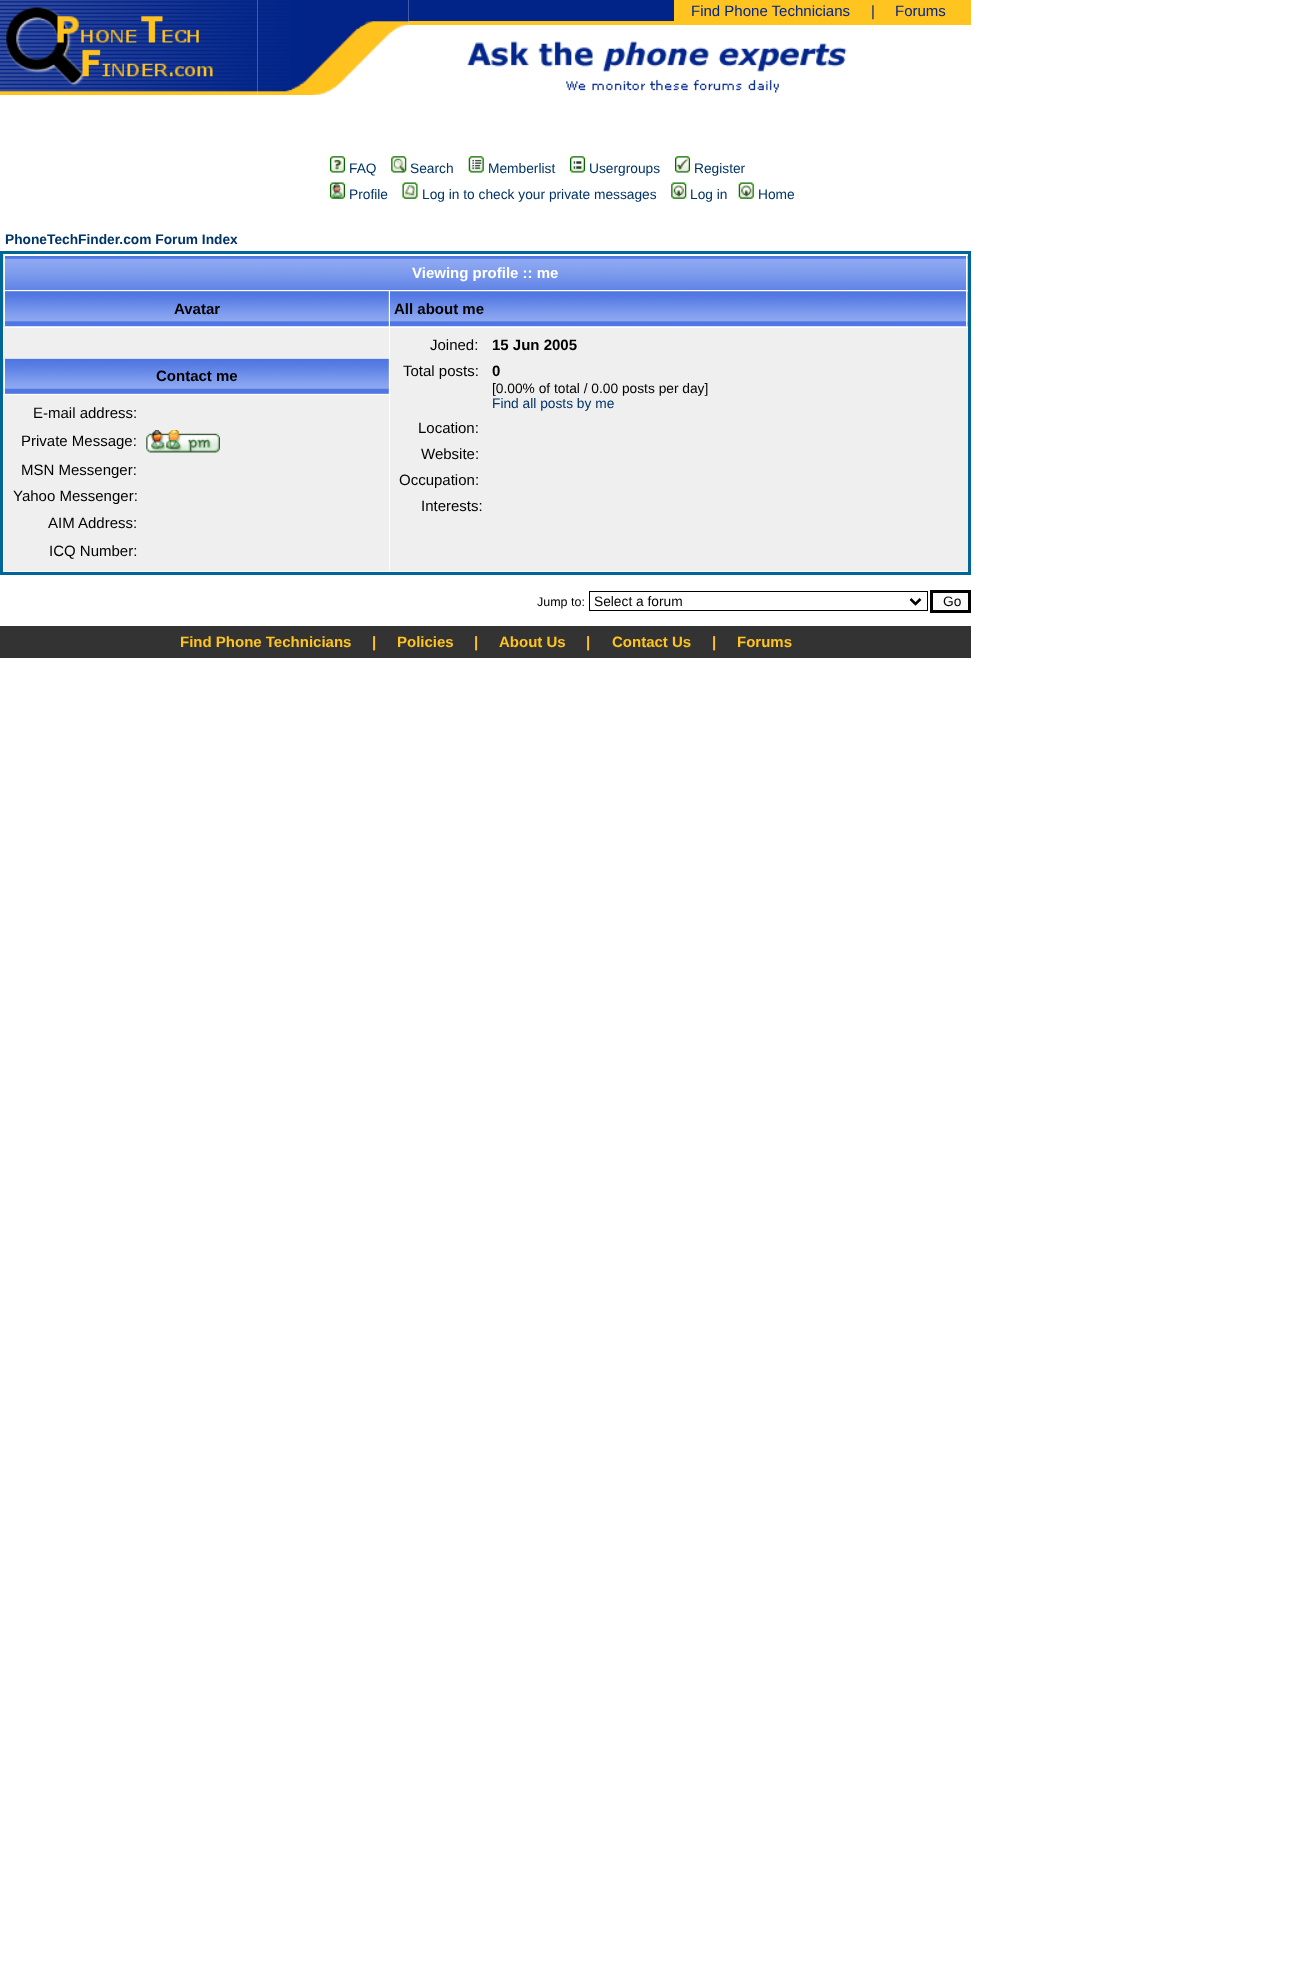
async function draw(canvas) {
  canvas.width = 1293
  canvas.height = 1963
  const ctx = canvas.getContext('2d')
  ctx.miterLimit = 4
  ctx.fontKerning = 'normal'
  async function loadImage(src) {
    const img = new Image()
    img.src = src
    await img.decode()
    return img
  }

  ctx.fillStyle = '#fff'
  ctx.fillRect(0, 0, 1293, 1963)
  ctx.drawImage(await loadImage('image0.png'), 0, 0, 258, 95)
  ctx.drawImage(await loadImage('image2.png'), 408, 21, 1, 1)
  ctx.drawImage(await loadImage('image1.png'), 257, 0, 152, 95)
  ctx.fillStyle = '#002488'
  ctx.fillRect(409, 0, 265, 21)
  ctx.fillStyle = '#ffc420'
  ctx.fillRect(674, 0, 297, 21)
  ctx.font = '15px Liberation Sans'
  ctx.fillStyle = '#002488'
  ctx.fillText('Find Phone Technicians', 691, 16)
  ctx.fillText('|', 871, 16)
  ctx.fillText('Forums', 895, 16)
  ctx.fillStyle = '#ffc420'
  ctx.fillRect(409, 21, 562, 4)
  ctx.drawImage(await loadImage('image3.png'), 408, 25, 439, 70)
  ctx.drawImage(await loadImage('image4.png'), 330, 156, 15, 17)
  ctx.font = '13.75px Liberation Sans'
  ctx.fillStyle = '#036'
  ctx.fillText('FAQ', 349, 173)
  ctx.drawImage(await loadImage('image5.png'), 391, 156, 16, 17)
  ctx.fillText('Search', 410, 173)
  ctx.drawImage(await loadImage('image6.png'), 468, 156, 16, 17)
  ctx.fillText('Memberlist', 488, 173)
  ctx.drawImage(await loadImage('image7.png'), 570, 156, 15, 17)
  ctx.fillText('Usergroups', 589, 173)
  ctx.drawImage(await loadImage('image8.png'), 675, 156, 15, 17)
  ctx.fillText('Register', 694, 173)
  ctx.drawImage(await loadImage('image9.png'), 330, 182, 15, 17)
  ctx.fillText('Profile', 349, 199)
  ctx.drawImage(await loadImage('image10.png'), 402, 182, 16, 17)
  ctx.fillText('Log in to check your private messages', 422, 199)
  ctx.drawImage(await loadImage('image11.png'), 671, 182, 16, 17)
  ctx.fillText('Log in', 690, 199)
  ctx.drawImage(await loadImage('image12.png'), 738, 182, 16, 17)
  ctx.fillText('Home', 758, 199)
  ctx.font = 'bold 13.75px Liberation Sans'
  ctx.fillText('PhoneTechFinder.com Forum Index', 5, 244)
  ctx.strokeStyle = '#069'
  ctx.lineWidth = 3
  ctx.strokeRect(1.5, 252.5, 968, 321)
  ctx.drawImage(await loadImage('image13.png'), 3, 255, 965, 35)
  ctx.fillStyle = '#fff'
  ctx.fillRect(4, 255, 964, 1)
  ctx.fillRect(966, 255, 1, 35)
  ctx.fillRect(4, 255, 1, 35)
  ctx.font = 'bold 15px Liberation Sans'
  ctx.fillText('Viewing profile :: me', 412, 278)
  ctx.fillStyle = '#d1d7dc'
  ctx.fillRect(5, 291, 384, 35)
  ctx.drawImage(await loadImage('image14.png'), 3, 291, 386, 36)
  ctx.fillStyle = '#fff'
  ctx.fillRect(4, 291, 1, 35)
  ctx.fillStyle = '#000'
  ctx.fillText('Avatar', 174, 314)
  ctx.drawImage(await loadImage('image15.png'), 390, 291, 578, 36)
  ctx.fillStyle = '#fff'
  ctx.fillRect(966, 291, 1, 35)
  ctx.fillStyle = '#000'
  ctx.fillText('All about me', 394, 314)
  ctx.fillStyle = '#d1d7dc'
  ctx.fillRect(5, 359, 384, 35)
  ctx.drawImage(await loadImage('image16.png'), 3, 358, 386, 36)
  ctx.fillStyle = '#fff'
  ctx.fillRect(4, 359, 1, 35)
  ctx.fillStyle = '#000'
  ctx.fillText('Contact me', 156, 381)
  ctx.fillStyle = '#efefef'
  ctx.fillRect(4, 328, 385, 30)
  ctx.fillRect(390, 328, 578, 243)
  ctx.font = '15px Liberation Sans'
  ctx.fillStyle = '#000'
  ctx.fillText('Joined:', 430, 350)
  ctx.font = 'bold 15px Liberation Sans'
  ctx.fillText('15 Jun 2005', 492, 350)
  ctx.font = '15px Liberation Sans'
  ctx.fillText('Total posts:', 403, 376)
  ctx.font = 'bold 15px Liberation Sans'
  ctx.fillText('0', 492, 376)
  ctx.font = '13.75px Liberation Sans'
  ctx.fillText('[0.00% of total / 0.00 posts per day]', 492, 393)
  ctx.fillStyle = '#036'
  ctx.fillText('Find all posts by me', 492, 408)
  ctx.font = '15px Liberation Sans'
  ctx.fillStyle = '#000'
  ctx.fillText('Location:', 418, 433)
  ctx.fillText('Website:', 421, 459)
  ctx.fillText('Occupation:', 399, 485)
  ctx.fillText('Interests:', 421, 511)
  ctx.fillStyle = '#efefef'
  ctx.fillRect(4, 395, 385, 176)
  ctx.fillStyle = '#000'
  ctx.fillText('E-mail address:', 33, 418)
  ctx.fillText('Private Message:', 21, 446)
  ctx.drawImage(await loadImage('image17.png'), 146, 430, 74, 23)
  ctx.fillText('MSN Messenger:', 21, 475)
  ctx.fillText('Yahoo Messenger:', 13, 501)
  ctx.fillText('AIM Address:', 48, 528)
  ctx.fillText('ICQ Number:', 49, 556)
  ctx.font = '12.5px Liberation Sans'
  ctx.fillText('Jump to:', 537, 606)
  ctx.strokeStyle = '#000'
  ctx.lineWidth = 1
  ctx.strokeRect(589.5, 591.5, 338, 19)
  ctx.beginPath()
  ctx.moveTo(910.5, 599)
  ctx.lineTo(915.5, 604)
  ctx.lineTo(920.5, 599)
  ctx.lineWidth = 2.5
  ctx.stroke()
  ctx.font = '13.75px Liberation Sans'
  ctx.fillText('Select a forum', 594, 606)
  ctx.fillStyle = '#fafafa'
  ctx.beginPath()
  ctx.rect(931.5, 591.5, 38, 20)
  ctx.fill()
  ctx.lineWidth = 3
  ctx.stroke()
  ctx.fillStyle = '#000'
  ctx.fillText('Go', 943, 606)
  ctx.fillStyle = '#333'
  ctx.fillRect(0, 626, 971, 32)
  ctx.font = 'bold 15px Liberation Sans'
  ctx.fillStyle = '#ffc420'
  ctx.fillText('Find Phone Technicians', 180, 647)
  ctx.fillText('|', 372, 647)
  ctx.fillText('Policies', 397, 647)
  ctx.fillText('|', 474, 647)
  ctx.fillText('About Us', 499, 647)
  ctx.fillText('|', 586, 647)
  ctx.fillText('Contact Us', 612, 647)
  ctx.fillText('|', 712, 647)
  ctx.fillText('Forums', 737, 647)
}

draw(document.querySelector('canvas'))
